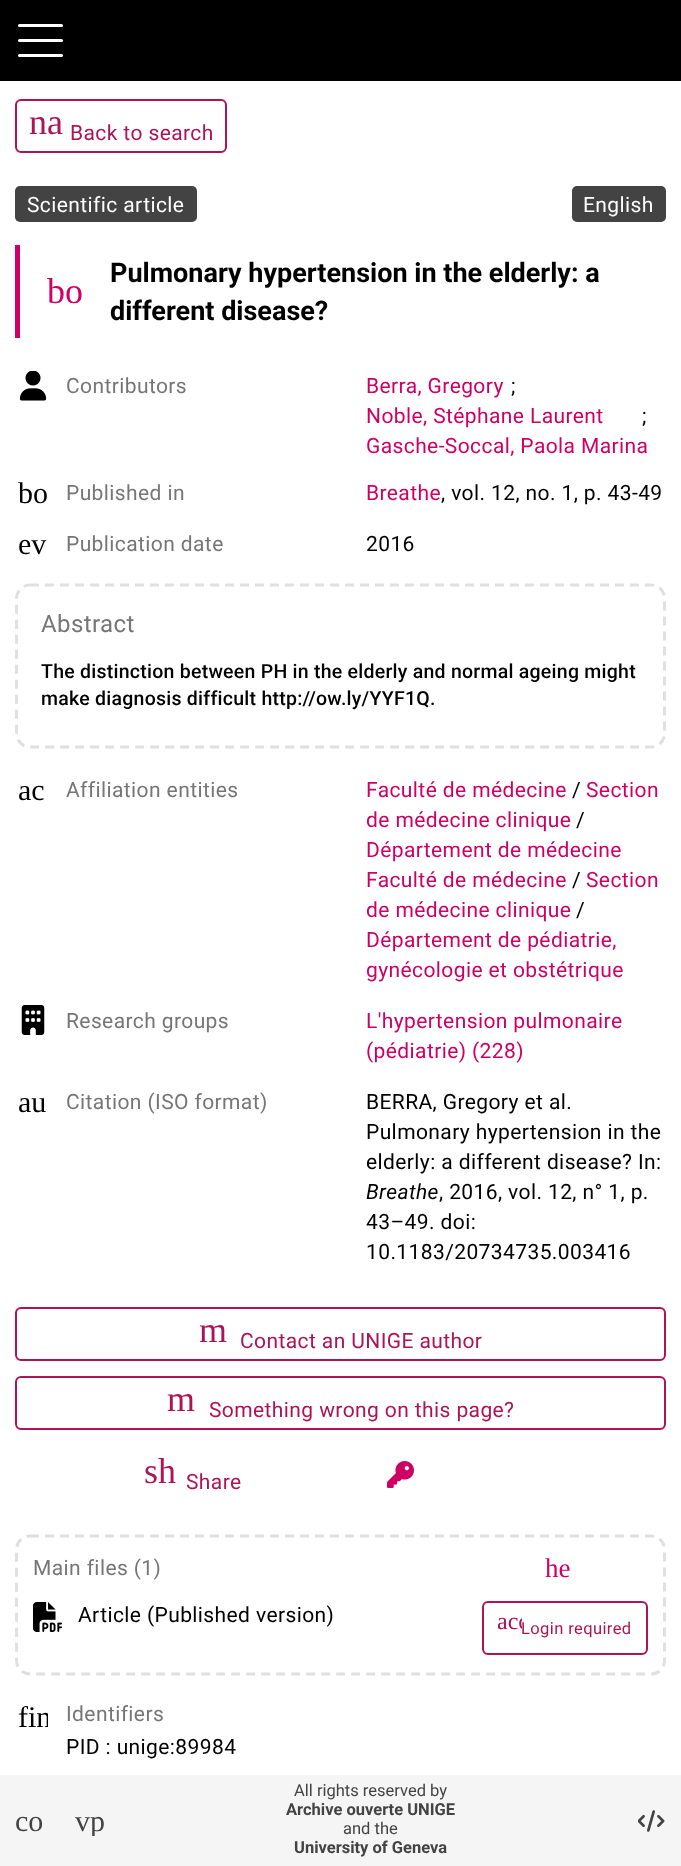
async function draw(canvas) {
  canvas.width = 681
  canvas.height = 1866
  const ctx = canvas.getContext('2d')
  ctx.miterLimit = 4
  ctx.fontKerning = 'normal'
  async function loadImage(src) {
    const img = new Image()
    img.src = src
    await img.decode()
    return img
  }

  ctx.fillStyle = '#fff'
  ctx.fillRect(0, 0, 681, 1866)
  ctx.fillStyle = '#000'
  ctx.fillRect(0, 0, 681, 81)
  ctx.fillStyle = '#fff'
  ctx.beginPath()
  ctx.roundRect(18, 24, 45, 3, 1.5)
  ctx.fill()
  ctx.beginPath()
  ctx.roundRect(18, 39, 45, 3, 1.5)
  ctx.fill()
  ctx.beginPath()
  ctx.roundRect(18, 54, 45, 3, 1.5)
  ctx.fill()
  ctx.beginPath()
  ctx.roundRect(16, 100, 210, 52, 5)
  ctx.strokeStyle = '#ad1457'
  ctx.lineWidth = 2
  ctx.stroke()
  ctx.font = '36px Liberation Serif'
  ctx.fillStyle = '#ad1457'
  ctx.fillText('na', 29, 134)
  ctx.letterSpacing = '0.4px'
  ctx.font = '21px Roboto'
  ctx.fillText('Back to search', 70, 140)
  ctx.fillStyle = '#434343'
  ctx.beginPath()
  ctx.roundRect(15, 186, 182, 36, 5)
  ctx.fill()
  ctx.fillStyle = '#fff'
  ctx.fillText('Scientific article', 27, 212)
  ctx.fillStyle = '#434343'
  ctx.beginPath()
  ctx.roundRect(572, 186, 94, 36, 5)
  ctx.fill()
  ctx.fillStyle = '#fff'
  ctx.fillText('English', 583, 212)
  ctx.fillStyle = '#cf0063'
  ctx.fillRect(15, 245, 5, 93)
  ctx.letterSpacing = '0px'
  ctx.font = '36px Liberation Serif'
  ctx.fillText('bo', 47, 303)
  ctx.font = 'bold 27px Roboto'
  ctx.fillStyle = '#000'
  ctx.fillText('Pulmonary hypertension in the elderly: a', 110, 282)
  ctx.fillText('different disease?', 110, 320)
  ctx.drawImage(await loadImage('image0.png'), 19, 371, 28, 30)
  ctx.letterSpacing = '0.4px'
  ctx.font = '21px Roboto'
  ctx.fillStyle = '#767676'
  ctx.fillText('Contributors', 66, 393)
  ctx.fillStyle = '#cf0063'
  ctx.fillText('Berra, Gregory', 366, 393)
  ctx.fillStyle = '#000'
  ctx.fillText(';', 511, 393)
  ctx.fillStyle = '#cf0063'
  ctx.fillText('Noble, Stéphane Laurent', 366, 423)
  ctx.fillStyle = '#000'
  ctx.fillText(';', 642, 423)
  ctx.fillStyle = '#cf0063'
  ctx.fillText('Gasche-Soccal, Paola Marina', 366, 453)
  ctx.letterSpacing = '0px'
  ctx.font = '30px Liberation Serif'
  ctx.fillStyle = '#000'
  ctx.fillText('bo', 18, 503)
  ctx.letterSpacing = '0.4px'
  ctx.font = '21px Roboto'
  ctx.fillStyle = '#767676'
  ctx.fillText('Published in', 66, 500)
  ctx.fillStyle = '#cf0063'
  ctx.fillText('Breathe', 366, 500)
  ctx.fillStyle = '#000'
  ctx.fillText(', vol. 12, no. 1, p. 43-49', 441, 500)
  ctx.letterSpacing = '0px'
  ctx.font = '30px Liberation Serif'
  ctx.fillText('ev', 18, 554)
  ctx.letterSpacing = '0.4px'
  ctx.font = '21px Roboto'
  ctx.fillStyle = '#767676'
  ctx.fillText('Publication date', 66, 551)
  ctx.fillStyle = '#000'
  ctx.fillText('2016', 366, 551)
  ctx.beginPath()
  ctx.moveTo(30, 585)
  ctx.lineTo(651, 585)
  ctx.bezierCurveTo(658.5, 585, 664.5, 591, 664.5, 598.5)
  ctx.lineTo(664.5, 733.5)
  ctx.bezierCurveTo(664.5, 741, 658.5, 747, 651, 747)
  ctx.lineTo(30, 747)
  ctx.bezierCurveTo(22.5, 747, 16.5, 741, 16.5, 733.5)
  ctx.lineTo(16.5, 598.5)
  ctx.bezierCurveTo(16.5, 591, 22.5, 585, 30, 585)
  ctx.closePath()
  ctx.strokeStyle = '#e0e0e0'
  ctx.lineWidth = 3
  ctx.setLineDash([9, 6])
  ctx.stroke()
  ctx.font = '24px Roboto'
  ctx.fillStyle = '#767676'
  ctx.fillText('Abstract', 41, 632)
  ctx.letterSpacing = '0.25px'
  ctx.font = '500 19.5px Roboto'
  ctx.fillStyle = '#000'
  ctx.fillText('The distinction between PH in the elderly and normal ageing might', 41, 678)
  ctx.fillText('make diagnosis difficult http://ow.ly/YYF1Q.', 41, 705)
  ctx.letterSpacing = '0px'
  ctx.font = '30px Liberation Serif'
  ctx.fillText('ac', 18, 800)
  ctx.letterSpacing = '0.4px'
  ctx.font = '21px Roboto'
  ctx.fillStyle = '#767676'
  ctx.fillText('Affiliation entities', 66, 797)
  ctx.fillStyle = '#cf0063'
  ctx.fillText('Faculté de médecine', 366, 797)
  ctx.fillStyle = '#000'
  ctx.fillText('/', 572, 797)
  ctx.fillStyle = '#cf0063'
  ctx.fillText('Section', 586, 797)
  ctx.fillText('de médecine clinique', 366, 827)
  ctx.fillStyle = '#000'
  ctx.fillText('/', 576, 827)
  ctx.fillStyle = '#cf0063'
  ctx.fillText('Département de médecine', 366, 857)
  ctx.fillText('Faculté de médecine', 366, 887)
  ctx.fillStyle = '#000'
  ctx.fillText('/', 572, 887)
  ctx.fillStyle = '#cf0063'
  ctx.fillText('Section', 586, 887)
  ctx.fillText('de médecine clinique', 366, 917)
  ctx.fillStyle = '#000'
  ctx.fillText('/', 576, 917)
  ctx.fillStyle = '#cf0063'
  ctx.fillText('Département de pédiatrie,', 366, 947)
  ctx.fillText('gynécologie et obstétrique', 366, 977)
  ctx.drawImage(await loadImage('image1.png'), 21, 1005, 24, 30)
  ctx.fillStyle = '#767676'
  ctx.fillText('Research groups', 66, 1028)
  ctx.fillStyle = '#cf0063'
  ctx.fillText('L\'hypertension pulmonaire', 366, 1028)
  ctx.fillText('(pédiatrie) (228)', 366, 1058)
  ctx.letterSpacing = '0px'
  ctx.font = '30px Liberation Serif'
  ctx.fillStyle = '#000'
  ctx.fillText('au', 18, 1112)
  ctx.letterSpacing = '0.4px'
  ctx.font = '21px Roboto'
  ctx.fillStyle = '#767676'
  ctx.fillText('Citation (ISO format)', 66, 1109)
  ctx.fillStyle = '#000'
  ctx.fillText('BERRA, Gregory et al.', 366, 1109)
  ctx.fillText('Pulmonary hypertension in the', 366, 1139)
  ctx.fillText('elderly: a different disease? In:', 366, 1169)
  ctx.font = 'italic 21px Roboto'
  ctx.fillText('Breathe', 366, 1199)
  ctx.font = '21px Roboto'
  ctx.fillText(', 2016, vol. 12, n° 1, p.', 439, 1199)
  ctx.fillText('43–49. doi:', 366, 1229)
  ctx.fillText('10.1183/20734735.003416', 366, 1259)
  ctx.beginPath()
  ctx.roundRect(16, 1308, 649, 52, 5)
  ctx.strokeStyle = '#ad1457'
  ctx.lineWidth = 2
  ctx.setLineDash([])
  ctx.stroke()
  ctx.save()
  ctx.beginPath()
  ctx.rect(200, 1313, 36, 36)
  ctx.clip()
  ctx.letterSpacing = '0px'
  ctx.font = '36px Liberation Serif'
  ctx.fillStyle = '#ad1457'
  ctx.fillText('m', 199, 1342)
  ctx.restore()
  ctx.fillStyle = '#ad1457'
  ctx.fillText('Contact an UNIGE author', 240, 1348)
  ctx.beginPath()
  ctx.roundRect(16, 1377, 649, 52, 5)
  ctx.stroke()
  ctx.letterSpacing = '0px'
  ctx.font = '36px Liberation Serif'
  ctx.fillText('m', 167, 1411)
  ctx.letterSpacing = '0.4px'
  ctx.font = '21px Roboto'
  ctx.fillText('Something wrong on this page?', 209, 1417)
  ctx.letterSpacing = '0px'
  ctx.font = '36px Liberation Serif'
  ctx.fillText('sh', 144, 1483)
  ctx.letterSpacing = '0.4px'
  ctx.font = '21px Roboto'
  ctx.fillText('Share', 186, 1489)
  ctx.drawImage(await loadImage('image2.png'), 387, 1461, 27, 27)
  ctx.beginPath()
  ctx.moveTo(30, 1536)
  ctx.lineTo(651, 1536)
  ctx.bezierCurveTo(658.5, 1536, 664.5, 1542, 664.5, 1549.5)
  ctx.lineTo(664.5, 1660.5)
  ctx.bezierCurveTo(664.5, 1668, 658.5, 1674, 651, 1674)
  ctx.lineTo(30, 1674)
  ctx.bezierCurveTo(22.5, 1674, 16.5, 1668, 16.5, 1660.5)
  ctx.lineTo(16.5, 1549.5)
  ctx.bezierCurveTo(16.5, 1542, 22.5, 1536, 30, 1536)
  ctx.closePath()
  ctx.strokeStyle = '#e0e0e0'
  ctx.lineWidth = 3
  ctx.setLineDash([9, 6])
  ctx.stroke()
  ctx.fillStyle = '#767676'
  ctx.fillText('Main files (1)', 33, 1575)
  ctx.letterSpacing = '0px'
  ctx.font = '27px Liberation Serif'
  ctx.fillStyle = '#cf0063'
  ctx.fillText('he', 545, 1577)
  ctx.drawImage(await loadImage('image3.png'), 33, 1602, 29, 30)
  ctx.letterSpacing = '0.4px'
  ctx.font = '21px Roboto'
  ctx.fillStyle = '#000'
  ctx.fillText('Article (Published version)', 78, 1622)
  ctx.beginPath()
  ctx.roundRect(483, 1602, 164, 52, 5)
  ctx.strokeStyle = '#ad1457'
  ctx.lineWidth = 2
  ctx.setLineDash([])
  ctx.stroke()
  ctx.save()
  ctx.beginPath()
  ctx.rect(498, 1610, 24, 24)
  ctx.clip()
  ctx.letterSpacing = '0px'
  ctx.font = '24px Liberation Serif'
  ctx.fillStyle = '#ad1457'
  ctx.fillText('acc', 497, 1629)
  ctx.restore()
  ctx.font = '16.5px Roboto'
  ctx.fillStyle = '#ad1457'
  ctx.fillText('Login required', 521, 1634)
  ctx.save()
  ctx.beginPath()
  ctx.rect(18, 1701, 30, 30)
  ctx.clip()
  ctx.letterSpacing = '0px'
  ctx.font = '30px Liberation Serif'
  ctx.fillStyle = '#000'
  ctx.fillText('fin', 18, 1727)
  ctx.restore()
  ctx.font = '21px Roboto'
  ctx.fillStyle = '#767676'
  ctx.fillText('Identifiers', 66, 1721)
  ctx.fillStyle = '#000'
  ctx.fillText('PID : unige:89984', 66, 1754)
  ctx.fillStyle = '#f5f5f5'
  ctx.fillRect(0, 1775, 681, 91)
  ctx.letterSpacing = '0px'
  ctx.font = '30px Liberation Serif'
  ctx.fillStyle = '#434343'
  ctx.fillText('co', 15, 1831)
  ctx.save()
  ctx.beginPath()
  ctx.rect(75, 1806, 30, 30)
  ctx.clip()
  ctx.fillText('vp', 75, 1831)
  ctx.restore()
  ctx.font = '16.5px Roboto'
  ctx.fillText('All rights reserved by', 294, 1796)
  ctx.font = 'bold 16.5px Roboto'
  ctx.fillText('Archive ouverte UNIGE', 286, 1815)
  ctx.font = '16.5px Roboto'
  ctx.fillText('and the', 343, 1834)
  ctx.font = 'bold 16.5px Roboto'
  ctx.fillText('University of Geneva', 294, 1853)
  ctx.drawImage(await loadImage('image4.png'), 638, 1810, 27, 22)
}

draw(document.querySelector('canvas'))
